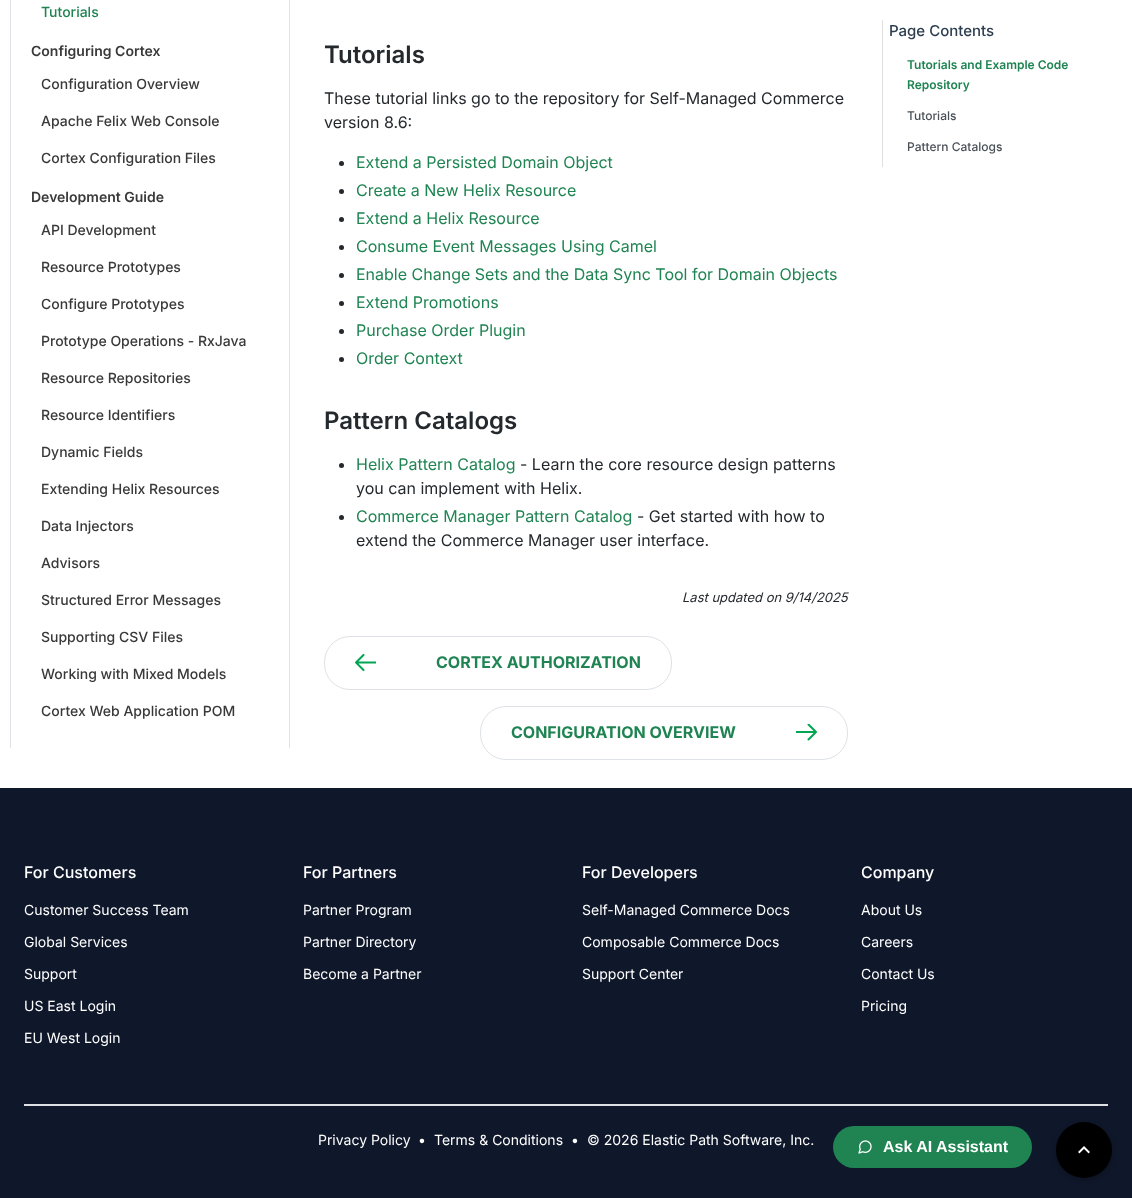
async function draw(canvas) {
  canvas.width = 1132
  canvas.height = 1198
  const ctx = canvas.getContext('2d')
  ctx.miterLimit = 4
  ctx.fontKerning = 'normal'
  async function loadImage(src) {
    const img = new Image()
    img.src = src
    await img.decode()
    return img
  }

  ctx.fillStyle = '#fff'
  ctx.fillRect(0, 0, 1132, 1198)
  ctx.fillStyle = '#dee2e6'
  ctx.fillRect(289, 0, 1, 748)
  ctx.fillRect(10, 0, 1, 748)
  ctx.font = '500 14px Inter'
  ctx.fillStyle = '#1f8452'
  ctx.fillText('Tutorials', 41, 17)
  ctx.font = '600 14px Inter'
  ctx.fillStyle = '#393939'
  ctx.fillText('Configuring Cortex', 31, 56)
  ctx.font = '500 14px Inter'
  ctx.fillText('Configuration Overview', 41, 89)
  ctx.fillText('Apache Felix Web Console', 41, 126)
  ctx.fillText('Cortex Configuration Files', 41, 163)
  ctx.font = '600 14px Inter'
  ctx.fillText('Development Guide', 31, 202)
  ctx.font = '500 14px Inter'
  ctx.fillText('API Development', 41, 235)
  ctx.fillText('Resource Prototypes', 41, 272)
  ctx.fillText('Configure Prototypes', 41, 309)
  ctx.fillText('Prototype Operations - RxJava', 41, 346)
  ctx.fillText('Resource Repositories', 41, 383)
  ctx.fillText('Resource Identifiers', 41, 420)
  ctx.fillText('Dynamic Fields', 41, 457)
  ctx.fillText('Extending Helix Resources', 41, 494)
  ctx.fillText('Data Injectors', 41, 531)
  ctx.fillText('Advisors', 41, 568)
  ctx.fillText('Structured Error Messages', 41, 605)
  ctx.fillText('Supporting CSV Files', 41, 642)
  ctx.fillText('Working with Mixed Models', 41, 679)
  ctx.fillText('Cortex Web Application POM', 41, 716)
  ctx.font = '600 24px Inter'
  ctx.fillStyle = '#24292e'
  ctx.fillText('Tutorials', 324, 63)
  ctx.font = '16px Inter'
  ctx.fillText('These tutorial links go to the repository for Self-Managed Commerce', 324, 104)
  ctx.fillText('version 8.6:', 324, 128)
  ctx.beginPath()
  ctx.arc(341.5, 163.5, 2.5, 0, 2 * Math.PI)
  ctx.fill()
  ctx.fillStyle = '#1f8452'
  ctx.fillText('Extend a Persisted Domain Object', 356, 168)
  ctx.fillStyle = '#24292e'
  ctx.beginPath()
  ctx.arc(341.5, 191.5, 2.5, 0, 2 * Math.PI)
  ctx.fill()
  ctx.fillStyle = '#1f8452'
  ctx.fillText('Create a New Helix Resource', 356, 196)
  ctx.fillStyle = '#24292e'
  ctx.beginPath()
  ctx.arc(341.5, 219.5, 2.5, 0, 2 * Math.PI)
  ctx.fill()
  ctx.fillStyle = '#1f8452'
  ctx.fillText('Extend a Helix Resource', 356, 224)
  ctx.fillStyle = '#24292e'
  ctx.beginPath()
  ctx.arc(341.5, 247.5, 2.5, 0, 2 * Math.PI)
  ctx.fill()
  ctx.fillStyle = '#1f8452'
  ctx.fillText('Consume Event Messages Using Camel', 356, 252)
  ctx.fillStyle = '#24292e'
  ctx.beginPath()
  ctx.arc(341.5, 275.5, 2.5, 0, 2 * Math.PI)
  ctx.fill()
  ctx.fillStyle = '#1f8452'
  ctx.fillText('Enable Change Sets and the Data Sync Tool for Domain Objects', 356, 280)
  ctx.fillStyle = '#24292e'
  ctx.beginPath()
  ctx.arc(341.5, 303.5, 2.5, 0, 2 * Math.PI)
  ctx.fill()
  ctx.fillStyle = '#1f8452'
  ctx.fillText('Extend Promotions', 356, 308)
  ctx.fillStyle = '#24292e'
  ctx.beginPath()
  ctx.arc(341.5, 331.5, 2.5, 0, 2 * Math.PI)
  ctx.fill()
  ctx.fillStyle = '#1f8452'
  ctx.fillText('Purchase Order Plugin', 356, 336)
  ctx.fillStyle = '#24292e'
  ctx.beginPath()
  ctx.arc(341.5, 359.5, 2.5, 0, 2 * Math.PI)
  ctx.fill()
  ctx.fillStyle = '#1f8452'
  ctx.fillText('Order Context', 356, 364)
  ctx.font = '600 24px Inter'
  ctx.fillStyle = '#24292e'
  ctx.fillText('Pattern Catalogs', 324, 429)
  ctx.beginPath()
  ctx.arc(341.5, 465.5, 2.5, 0, 2 * Math.PI)
  ctx.fill()
  ctx.font = '16px Inter'
  ctx.fillStyle = '#1f8452'
  ctx.fillText('Helix Pattern Catalog', 356, 470)
  ctx.fillStyle = '#24292e'
  ctx.fillText('- Learn the core resource design patterns', 520, 470)
  ctx.fillText('you can implement with Helix.', 356, 494)
  ctx.beginPath()
  ctx.arc(341.5, 517.5, 2.5, 0, 2 * Math.PI)
  ctx.fill()
  ctx.fillStyle = '#1f8452'
  ctx.fillText('Commerce Manager Pattern Catalog', 356, 522)
  ctx.fillStyle = '#24292e'
  ctx.fillText('- Get started with how to', 637, 522)
  ctx.fillText('extend the Commerce Manager user interface.', 356, 546)
  ctx.font = 'italic 13px Inter'
  ctx.fillText('Last updated on 9/14/2025', 682, 602)
  ctx.beginPath()
  ctx.roundRect(324.5, 636.5, 347, 53, 25.5)
  ctx.strokeStyle = '#dee2e6'
  ctx.stroke()
  ctx.save()
  ctx.beginPath()
  ctx.rect(355, 654, 21, 17)
  ctx.clip()
  ctx.beginPath()
  ctx.moveTo(375.5, 662.5)
  ctx.lineTo(356, 662.5)
  ctx.moveTo(356, 662.5)
  ctx.lineTo(363.5, 655)
  ctx.moveTo(356, 662.5)
  ctx.lineTo(363.5, 670)
  ctx.strokeStyle = '#00a651'
  ctx.lineWidth = 2
  ctx.lineCap = 'round'
  ctx.lineJoin = 'round'
  ctx.stroke()
  ctx.restore()
  ctx.font = 'bold 16px Inter'
  ctx.fillStyle = '#1f8452'
  ctx.fillText('CORTEX AUTHORIZATION', 436, 668)
  ctx.beginPath()
  ctx.roundRect(480.5, 706.5, 367, 53, 25.5)
  ctx.stroke()
  ctx.fillText('CONFIGURATION OVERVIEW', 511, 738)
  ctx.save()
  ctx.beginPath()
  ctx.rect(796, 724, 21, 17)
  ctx.clip()
  ctx.beginPath()
  ctx.moveTo(796.5, 732)
  ctx.lineTo(816, 732)
  ctx.moveTo(816, 732)
  ctx.lineTo(808.5, 739.5)
  ctx.moveTo(816, 732)
  ctx.lineTo(808.5, 724.5)
  ctx.strokeStyle = '#00a651'
  ctx.lineWidth = 2
  ctx.lineCap = 'round'
  ctx.lineJoin = 'round'
  ctx.stroke()
  ctx.restore()
  ctx.fillStyle = '#e0e0e0'
  ctx.fillRect(882, 20, 1, 147)
  ctx.font = '500 15px Inter'
  ctx.fillStyle = '#2c3e50'
  ctx.fillText('Page Contents', 889, 36)
  ctx.font = '600 12px Inter'
  ctx.fillStyle = '#1f8452'
  ctx.fillText('Tutorials and Example Code', 907, 69)
  ctx.fillText('Repository', 907, 89)
  ctx.font = '500 12px Inter'
  ctx.fillStyle = '#495057'
  ctx.fillText('Tutorials', 907, 120)
  ctx.fillText('Pattern Catalogs', 907, 151)
  ctx.fillStyle = '#0f172a'
  ctx.fillRect(0, 788, 1132, 410)
  ctx.font = '500 16px Inter'
  ctx.fillStyle = '#fff'
  ctx.fillText('For Customers', 24, 878)
  ctx.font = '14px Inter'
  ctx.fillText('Customer Success Team', 24, 915)
  ctx.fillText('Global Services', 24, 947)
  ctx.fillText('Support', 24, 979)
  ctx.fillText('US East Login', 24, 1011)
  ctx.fillText('EU West Login', 24, 1043)
  ctx.font = '500 16px Inter'
  ctx.fillText('For Partners', 303, 878)
  ctx.font = '14px Inter'
  ctx.fillText('Partner Program', 303, 915)
  ctx.fillText('Partner Directory', 303, 947)
  ctx.fillText('Become a Partner', 303, 979)
  ctx.font = '500 16px Inter'
  ctx.fillText('For Developers', 582, 878)
  ctx.font = '14px Inter'
  ctx.fillText('Self-Managed Commerce Docs', 582, 915)
  ctx.fillText('Composable Commerce Docs', 582, 947)
  ctx.fillText('Support Center', 582, 979)
  ctx.font = '500 16px Inter'
  ctx.fillText('Company', 861, 878)
  ctx.font = '14px Inter'
  ctx.fillText('About Us', 861, 915)
  ctx.fillText('Careers', 861, 947)
  ctx.fillText('Contact Us', 861, 979)
  ctx.fillText('Pricing', 861, 1011)
  ctx.fillStyle = '#dfe2e5'
  ctx.fillRect(24, 1104, 1084, 2)
  ctx.fillStyle = '#fff'
  ctx.fillText('Privacy Policy', 318, 1145)
  ctx.fillText('•', 418, 1145)
  ctx.fillText('Terms & Conditions', 434, 1145)
  ctx.fillText('•', 571, 1145)
  ctx.fillText('© 2026 Elastic Path Software, Inc.', 587, 1145)
  ctx.fillStyle = '#00000042'
  ctx.filter = 'blur(2.5px)'
  ctx.beginPath()
  ctx.roundRect(1056, 1124, 56, 56, 28)
  ctx.fill()
  ctx.filter = 'none'
  ctx.fillStyle = '#000'
  ctx.beginPath()
  ctx.arc(1084, 1150, 28, 0, 2 * Math.PI)
  ctx.fill()
  ctx.drawImage(await loadImage('image0.png'), 1078, 1146, 12, 8)
  ctx.fillStyle = '#1f8452'
  ctx.beginPath()
  ctx.roundRect(833, 1126, 199, 42, 21)
  ctx.fill()
  ctx.drawImage(await loadImage('image1.png'), 858, 1140, 14, 14)
  ctx.font = 'bold 16px Liberation Sans'
  ctx.fillStyle = '#fff'
  ctx.fillText('Ask AI Assistant', 883, 1152)
}

draw(document.querySelector('canvas'))
